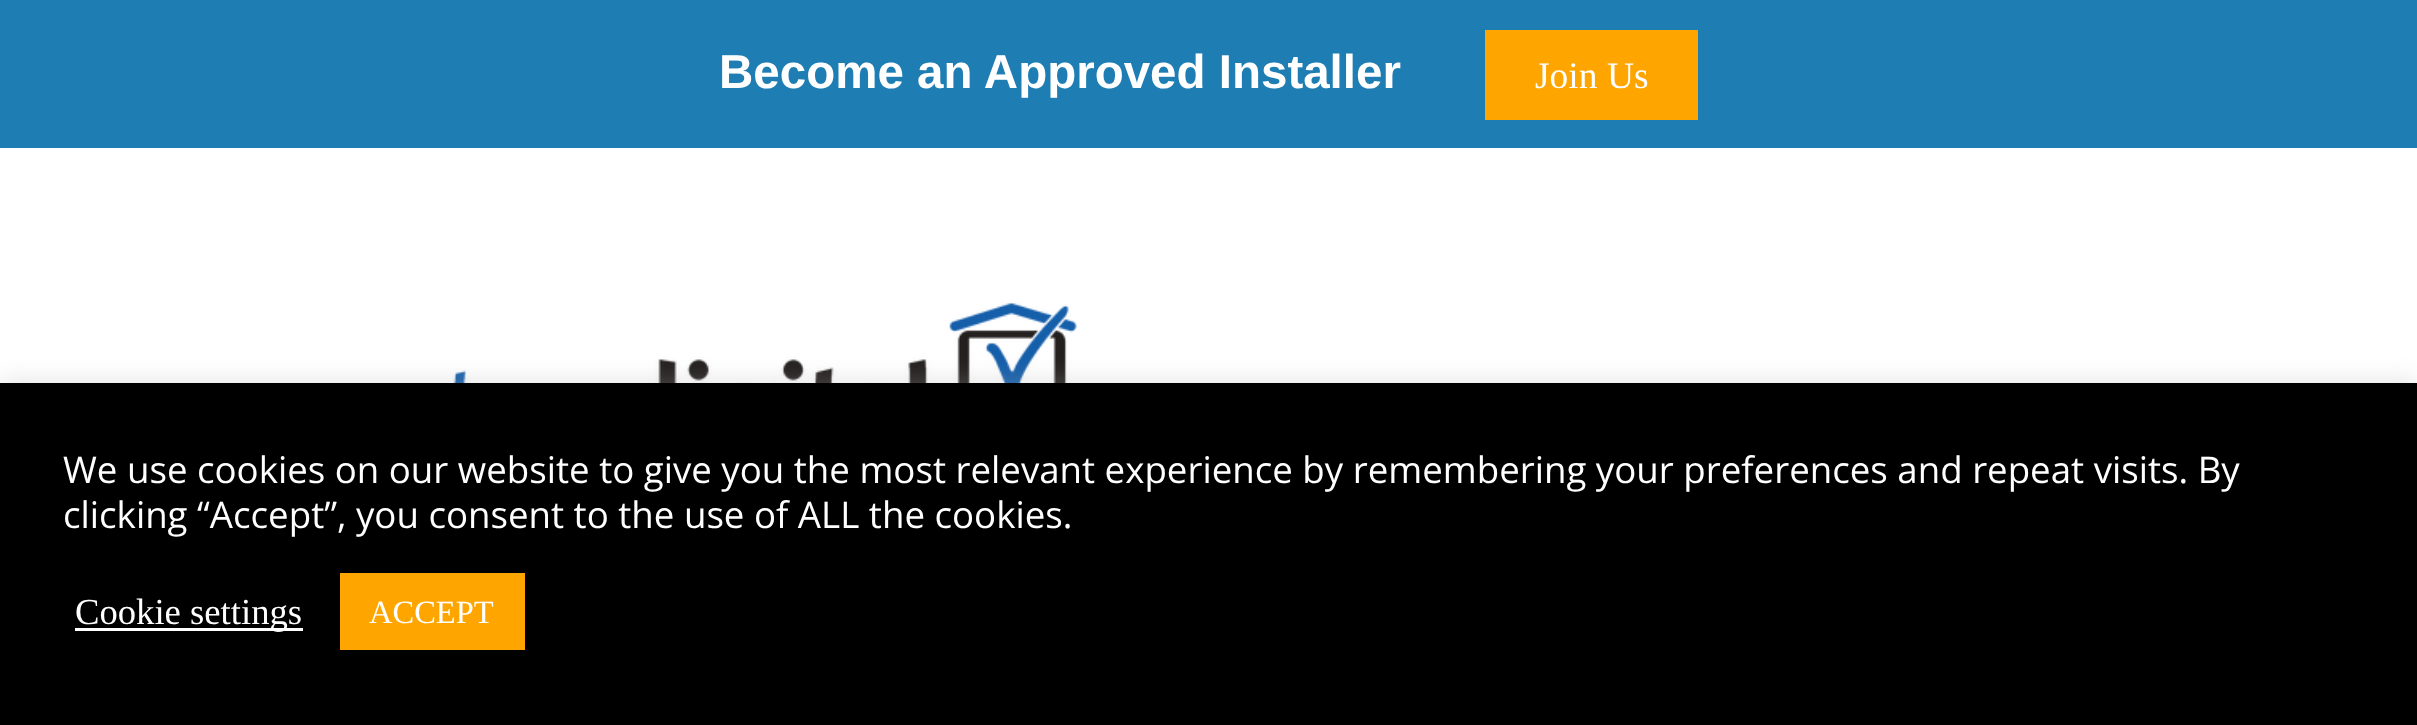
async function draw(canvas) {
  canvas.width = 2417
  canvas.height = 725
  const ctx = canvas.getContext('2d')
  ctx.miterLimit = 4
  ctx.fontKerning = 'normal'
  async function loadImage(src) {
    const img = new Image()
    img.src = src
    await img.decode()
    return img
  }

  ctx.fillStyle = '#fff'
  ctx.fillRect(0, 0, 2417, 725)
  ctx.fillStyle = '#1e7eb3'
  ctx.fillRect(0, 0, 2417, 148)
  ctx.font = 'bold 47.5px Liberation Sans'
  ctx.fillStyle = '#fff'
  ctx.fillText('Become an Approved Installer', 719, 88)
  ctx.fillStyle = '#ffa500'
  ctx.fillRect(1485, 30, 213, 90)
  ctx.font = '37.5px Liberation Serif'
  ctx.fillStyle = '#fff'
  ctx.fillText('Join Us', 1535, 88)
  ctx.drawImage(await loadImage('image0.png'), 453, 302, 624, 81)
  ctx.fillStyle = '#acabab4d'
  ctx.filter = 'blur(12.5px)'
  ctx.beginPath()
  ctx.rect(0, 380, 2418, 343)
  ctx.fill()
  ctx.filter = 'none'
  ctx.fillStyle = '#000'
  ctx.fillRect(0, 383, 2417, 342)
  ctx.font = '36.67px Open Sans'
  ctx.fillStyle = '#fff'
  ctx.fillText('We use cookies on our website to give you the most relevant experience by remembering your preferences and repeat visits. By', 63, 483)
  ctx.fillText('clicking “Accept”, you consent to the use of ALL the cookies.', 63, 528)
  ctx.fillRect(75, 628, 228, 3)
  ctx.font = '36.67px Liberation Serif'
  ctx.fillText('Cookie settings', 75, 624)
  ctx.fillStyle = '#ffa500'
  ctx.fillRect(340, 573, 185, 77)
  ctx.font = '32.5px Liberation Serif'
  ctx.fillStyle = '#fff'
  ctx.fillText('ACCEPT', 369, 623)
}

draw(document.querySelector('canvas'))
